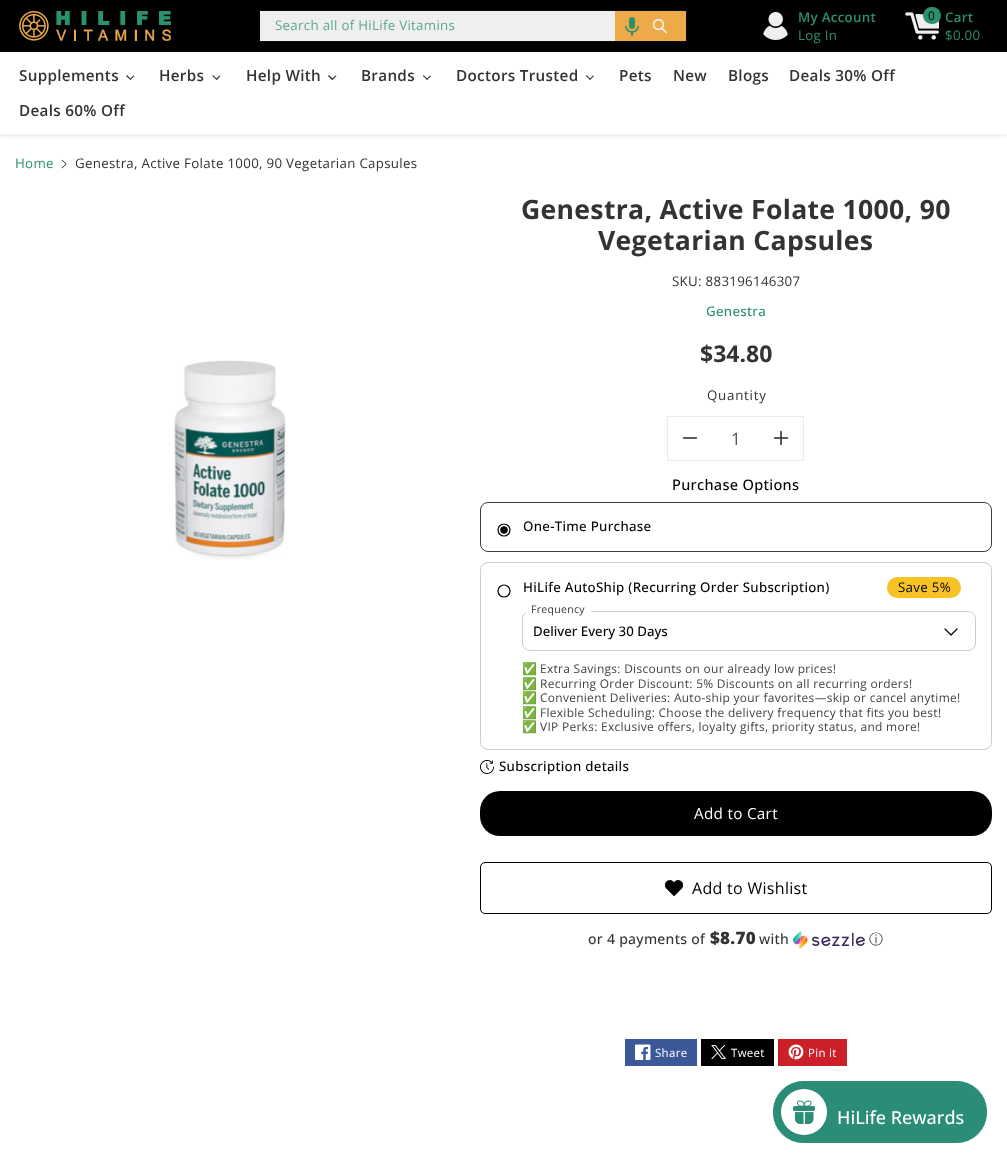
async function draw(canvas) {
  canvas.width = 1007
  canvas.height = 1163
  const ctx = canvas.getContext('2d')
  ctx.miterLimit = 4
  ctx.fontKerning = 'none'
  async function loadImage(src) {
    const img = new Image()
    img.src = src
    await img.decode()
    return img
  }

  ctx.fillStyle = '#fff'
  ctx.fillRect(0, 0, 1007, 1163)
  ctx.fillStyle = '#3333331a'
  ctx.filter = 'blur(2px)'
  ctx.beginPath()
  ctx.rect(0, 2, 1007, 134)
  ctx.fill()
  ctx.filter = 'none'
  ctx.fillStyle = '#000'
  ctx.fillRect(0, 0, 1007, 52)
  ctx.drawImage(await loadImage('image0.png'), 19, 11, 153, 30)
  ctx.fillStyle = '#efefef'
  ctx.fillRect(260, 11, 355, 30)
  ctx.fillStyle = '#eeaa49'
  ctx.fillRect(615, 11, 71, 30)
  ctx.drawImage(await loadImage('image1.png'), 653, 18, 14, 16)
  ctx.strokeStyle = '#040e0b'
  ctx.strokeRect(259.5, 10.5, 427, 31)
  ctx.letterSpacing = '0.3px'
  ctx.font = '13.3px Open Sans'
  ctx.fillStyle = '#5ca88e'
  ctx.fillText('Search all of HiLife Vitamins', 275, 30)
  ctx.drawImage(await loadImage('image2.png'), 625, 17, 14, 19)
  ctx.drawImage(await loadImage('image3.png'), 763, 12, 25, 28)
  ctx.font = '600 13.3px Open Sans'
  ctx.fillStyle = '#2b906d'
  ctx.fillText('My Account', 798, 22)
  ctx.font = '13.3px Open Sans'
  ctx.fillText('Log In', 798, 40)
  ctx.drawImage(await loadImage('image4.png'), 905, 12, 34, 28)
  ctx.beginPath()
  ctx.roundRect(923, 7, 18, 17, 8.5)
  ctx.fill()
  ctx.font = '12px Open Sans'
  ctx.fillStyle = '#000'
  ctx.fillText('0', 928, 20)
  ctx.font = '600 13.3px Open Sans'
  ctx.fillStyle = '#2b906d'
  ctx.fillText('Cart', 945, 22)
  ctx.font = '13.3px Open Sans'
  ctx.fillText('$0.00', 945, 40)
  ctx.fillStyle = '#fff'
  ctx.fillRect(0, 52, 1007, 82)
  ctx.font = '600 15.25px Open Sans'
  ctx.fillStyle = '#333'
  ctx.fillText('Supplements', 19, 81)
  ctx.beginPath()
  ctx.moveTo(133.5, 75.5)
  ctx.lineTo(134.5, 76)
  ctx.lineTo(130.5, 80)
  ctx.lineTo(130, 79)
  ctx.closePath()
  ctx.fill()
  ctx.beginPath()
  ctx.moveTo(127, 75)
  ctx.lineTo(131, 79)
  ctx.lineTo(130.5, 80)
  ctx.lineTo(126, 76)
  ctx.closePath()
  ctx.fill()
  ctx.fillText('Herbs', 159, 81)
  ctx.beginPath()
  ctx.moveTo(219.5, 75.5)
  ctx.lineTo(220.5, 76)
  ctx.lineTo(217, 80)
  ctx.lineTo(216, 79)
  ctx.closePath()
  ctx.fill()
  ctx.beginPath()
  ctx.moveTo(213, 75)
  ctx.lineTo(217, 79)
  ctx.lineTo(216.5, 80)
  ctx.lineTo(212.5, 76)
  ctx.closePath()
  ctx.fill()
  ctx.fillText('Help With', 246, 81)
  ctx.beginPath()
  ctx.moveTo(335.5, 75.5)
  ctx.lineTo(336.5, 76)
  ctx.lineTo(332.5, 80)
  ctx.lineTo(331.5, 79)
  ctx.closePath()
  ctx.fill()
  ctx.beginPath()
  ctx.moveTo(329, 75)
  ctx.lineTo(333, 79)
  ctx.lineTo(332, 80)
  ctx.lineTo(328, 76)
  ctx.closePath()
  ctx.fill()
  ctx.fillText('Brands', 361, 81)
  ctx.beginPath()
  ctx.moveTo(430, 75.5)
  ctx.lineTo(431, 76)
  ctx.lineTo(427, 80)
  ctx.lineTo(426.5, 79)
  ctx.closePath()
  ctx.fill()
  ctx.beginPath()
  ctx.moveTo(423.5, 75)
  ctx.lineTo(427.5, 79)
  ctx.lineTo(427, 80)
  ctx.lineTo(423, 76)
  ctx.closePath()
  ctx.fill()
  ctx.fillText('Doctors Trusted', 456, 81)
  ctx.beginPath()
  ctx.moveTo(593, 75.5)
  ctx.lineTo(594, 76)
  ctx.lineTo(590, 80)
  ctx.lineTo(589.5, 79)
  ctx.closePath()
  ctx.fill()
  ctx.beginPath()
  ctx.moveTo(586.5, 75)
  ctx.lineTo(590.5, 79)
  ctx.lineTo(590, 80)
  ctx.lineTo(586, 76)
  ctx.closePath()
  ctx.fill()
  ctx.fillText('Pets', 619, 81)
  ctx.fillText('New', 673, 81)
  ctx.fillText('Blogs', 728, 81)
  ctx.fillText('Deals 30% Off', 789, 81)
  ctx.fillText('Deals 60% Off', 19, 116)
  ctx.font = '13.3px Open Sans'
  ctx.fillStyle = '#2b906d'
  ctx.fillText('Home', 15, 168)
  ctx.drawImage(await loadImage('image5.png'), 61, 159, 6, 10)
  ctx.fillStyle = '#333'
  ctx.fillText('Genestra, Active Folate 1000, 90 Vegetarian Capsules', 75, 168)
  ctx.drawImage(await loadImage('image6.png'), 173, 360, 114, 200)
  ctx.font = 'bold 26.6px Open Sans'
  ctx.fillText('Genestra, Active Folate 1000, 90', 521, 219)
  ctx.fillText('Vegetarian Capsules', 598, 250)
  ctx.font = '13.3px Open Sans'
  ctx.fillText('SKU: 883196146307', 672, 286)
  ctx.font = '500 13.3px Open Sans'
  ctx.fillStyle = '#2b906d'
  ctx.fillText('Genestra', 706, 316)
  ctx.letterSpacing = '0px'
  ctx.font = 'bold 23px Open Sans'
  ctx.fillStyle = '#333'
  ctx.fillText('$34.80', 700, 362)
  ctx.letterSpacing = '0.75px'
  ctx.font = '13.3px Open Sans'
  ctx.fillText('Quantity', 707, 400)
  ctx.drawImage(await loadImage('image7.png'), 682, 437, 16, 2)
  ctx.drawImage(await loadImage('image8.png'), 773, 430, 16, 16)
  ctx.strokeStyle = '#ebebeb'
  ctx.strokeRect(667.5, 416.5, 136, 44)
  ctx.letterSpacing = '0px'
  ctx.font = '17px Open Sans'
  ctx.fillStyle = '#525252'
  ctx.fillText('1', 731, 445)
  ctx.letterSpacing = '0.3px'
  ctx.font = '500 14.6px Open Sans'
  ctx.fillStyle = '#000'
  ctx.fillText('Purchase Options', 672, 490)
  ctx.beginPath()
  ctx.roundRect(480.5, 502.5, 511, 49, 7.5)
  ctx.strokeStyle = '#3d3d3d'
  ctx.stroke()
  ctx.beginPath()
  ctx.arc(504, 530, 6, 0, 2 * Math.PI)
  ctx.strokeStyle = '#000'
  ctx.lineWidth = 1.2
  ctx.stroke()
  ctx.beginPath()
  ctx.arc(504, 530, 3.5, 0, 2 * Math.PI)
  ctx.fill()
  ctx.lineWidth = 0.6
  ctx.stroke()
  ctx.font = '500 13.3px Open Sans'
  ctx.fillText('One-Time Purchase', 523, 531)
  ctx.beginPath()
  ctx.roundRect(480.5, 562.5, 511, 187, 7.5)
  ctx.strokeStyle = '#c3cfd9'
  ctx.lineWidth = 1
  ctx.stroke()
  ctx.beginPath()
  ctx.arc(504, 591, 6, 0, 2 * Math.PI)
  ctx.strokeStyle = '#000'
  ctx.lineWidth = 1.2
  ctx.stroke()
  ctx.fillText('HiLife AutoShip (Recurring Order Subscription)', 523, 592)
  ctx.fillStyle = '#f7c324'
  ctx.beginPath()
  ctx.roundRect(887, 577, 74, 21, 10.5)
  ctx.fill()
  ctx.font = '13.3px Open Sans'
  ctx.fillStyle = '#000'
  ctx.fillText('Save 5%', 898, 592)
  ctx.beginPath()
  ctx.roundRect(522.5, 611.5, 453, 39, 7.5)
  ctx.strokeStyle = '#c3d0d9'
  ctx.lineWidth = 1
  ctx.stroke()
  ctx.fillStyle = '#fff'
  ctx.fillRect(526, 611, 65, 3)
  ctx.font = '10.5px Open Sans'
  ctx.fillStyle = '#333'
  ctx.fillText('Frequency', 531, 613)
  ctx.letterSpacing = '0px'
  ctx.font = '500 13.3px Open Sans'
  ctx.fillStyle = '#000'
  ctx.fillText('Deliver Every 30 Days', 533, 636)
  ctx.beginPath()
  ctx.moveTo(957, 629)
  ctx.lineTo(951, 635)
  ctx.lineTo(945, 629)
  ctx.strokeStyle = '#000'
  ctx.lineWidth = 1.2
  ctx.lineCap = 'round'
  ctx.lineJoin = 'round'
  ctx.stroke()
  ctx.save()
  ctx.beginPath()
  ctx.rect(522, 605, 454, 129)
  ctx.clip()
  ctx.letterSpacing = '0.3px'
  ctx.font = '11.95px Noto Color Emoji'
  ctx.fillStyle = '#434343'
  ctx.fillText('✅', 522, 673)
  ctx.restore()
  ctx.letterSpacing = '0.3px'
  ctx.font = '11.95px Open Sans'
  ctx.fillStyle = '#434343'
  ctx.fillText('Extra Savings: Discounts on our already low prices!', 540, 673)
  ctx.save()
  ctx.beginPath()
  ctx.rect(522, 605, 454, 129)
  ctx.clip()
  ctx.font = '11.95px Noto Color Emoji'
  ctx.fillText('✅', 522, 688)
  ctx.restore()
  ctx.fillText('Recurring Order Discount: 5% Discounts on all recurring orders!', 540, 688)
  ctx.save()
  ctx.beginPath()
  ctx.rect(522, 605, 454, 129)
  ctx.clip()
  ctx.font = '11.95px Noto Color Emoji'
  ctx.fillText('✅', 522, 702)
  ctx.restore()
  ctx.fillText('Convenient Deliveries: Auto-ship your favorites—skip or cancel anytime!', 540, 702)
  ctx.save()
  ctx.beginPath()
  ctx.rect(522, 605, 454, 129)
  ctx.clip()
  ctx.font = '11.95px Noto Color Emoji'
  ctx.fillText('✅', 522, 717)
  ctx.restore()
  ctx.fillText('Flexible Scheduling: Choose the delivery frequency that fits you best!', 540, 717)
  ctx.save()
  ctx.beginPath()
  ctx.rect(522, 605, 454, 129)
  ctx.clip()
  ctx.font = '11.95px Noto Color Emoji'
  ctx.fillText('✅', 522, 731)
  ctx.restore()
  ctx.fillText('VIP Perks: Exclusive offers, loyalty gifts, priority status, and more!', 540, 731)
  ctx.drawImage(await loadImage('image9.png'), 480, 760, 14, 14)
  ctx.font = '500 13.3px Open Sans'
  ctx.fillStyle = '#000'
  ctx.fillText('Subscription details', 499, 771)
  ctx.beginPath()
  ctx.roundRect(480, 791, 512, 45, 20)
  ctx.fill()
  ctx.font = '15.25px Open Sans'
  ctx.fillStyle = '#fff'
  ctx.fillText('Add to Cart', 694, 819)
  ctx.beginPath()
  ctx.roundRect(480.5, 862.5, 511, 51, 4.5)
  ctx.lineWidth = 1
  ctx.lineJoin = 'miter'
  ctx.stroke()
  ctx.drawImage(await loadImage('image10.png'), 664, 880, 20, 16)
  ctx.font = '16px Open Sans'
  ctx.fillStyle = '#000'
  ctx.fillText('Add to Wishlist', 692, 894)
  ctx.font = '500 14px Open Sans'
  ctx.fillStyle = '#333'
  ctx.fillText('or 4 payments of', 588, 944)
  ctx.font = '800 17px Open Sans'
  ctx.fillText('$8.70', 710, 944)
  ctx.font = '500 14px Open Sans'
  ctx.fillText('with', 759, 944)
  ctx.drawImage(await loadImage('image11.png'), 793, 931, 72, 18)
  ctx.font = '500 14px WenQuanYi Zen Hei'
  ctx.fillText('ⓘ', 869, 944)
  ctx.fillStyle = '#3b5998'
  ctx.fillRect(625, 1039, 72, 27)
  ctx.drawImage(await loadImage('image12.png'), 635, 1044, 16, 16)
  ctx.font = '11.5px Open Sans'
  ctx.fillStyle = '#fff'
  ctx.fillText('Share', 655, 1057)
  ctx.fillStyle = '#000'
  ctx.fillRect(701, 1039, 73, 27)
  ctx.drawImage(await loadImage('image13.png'), 711, 1045, 15, 14)
  ctx.fillStyle = '#fff'
  ctx.fillText('Tweet', 731, 1057)
  ctx.fillStyle = '#cb2027'
  ctx.fillRect(778, 1039, 69, 27)
  ctx.drawImage(await loadImage('image14.png'), 788, 1044, 16, 16)
  ctx.fillStyle = '#fff'
  ctx.fillText('Pin it', 808, 1057)
  ctx.fillStyle = '#2b8d77'
  ctx.beginPath()
  ctx.roundRect(773.5, 1081.5, 213, 61, 29.5)
  ctx.fill()
  ctx.strokeStyle = '#2b8d77'
  ctx.stroke()
  ctx.fillStyle = '#fff'
  ctx.beginPath()
  ctx.arc(804, 1112, 23, 0, 2 * Math.PI)
  ctx.fill()
  ctx.drawImage(await loadImage('image15.png'), 793, 1100, 22, 24)
  ctx.letterSpacing = '0px'
  ctx.font = '500 18px Open Sans'
  ctx.fillText('HiLife Rewards', 837, 1124)
}

draw(document.querySelector('canvas'))
